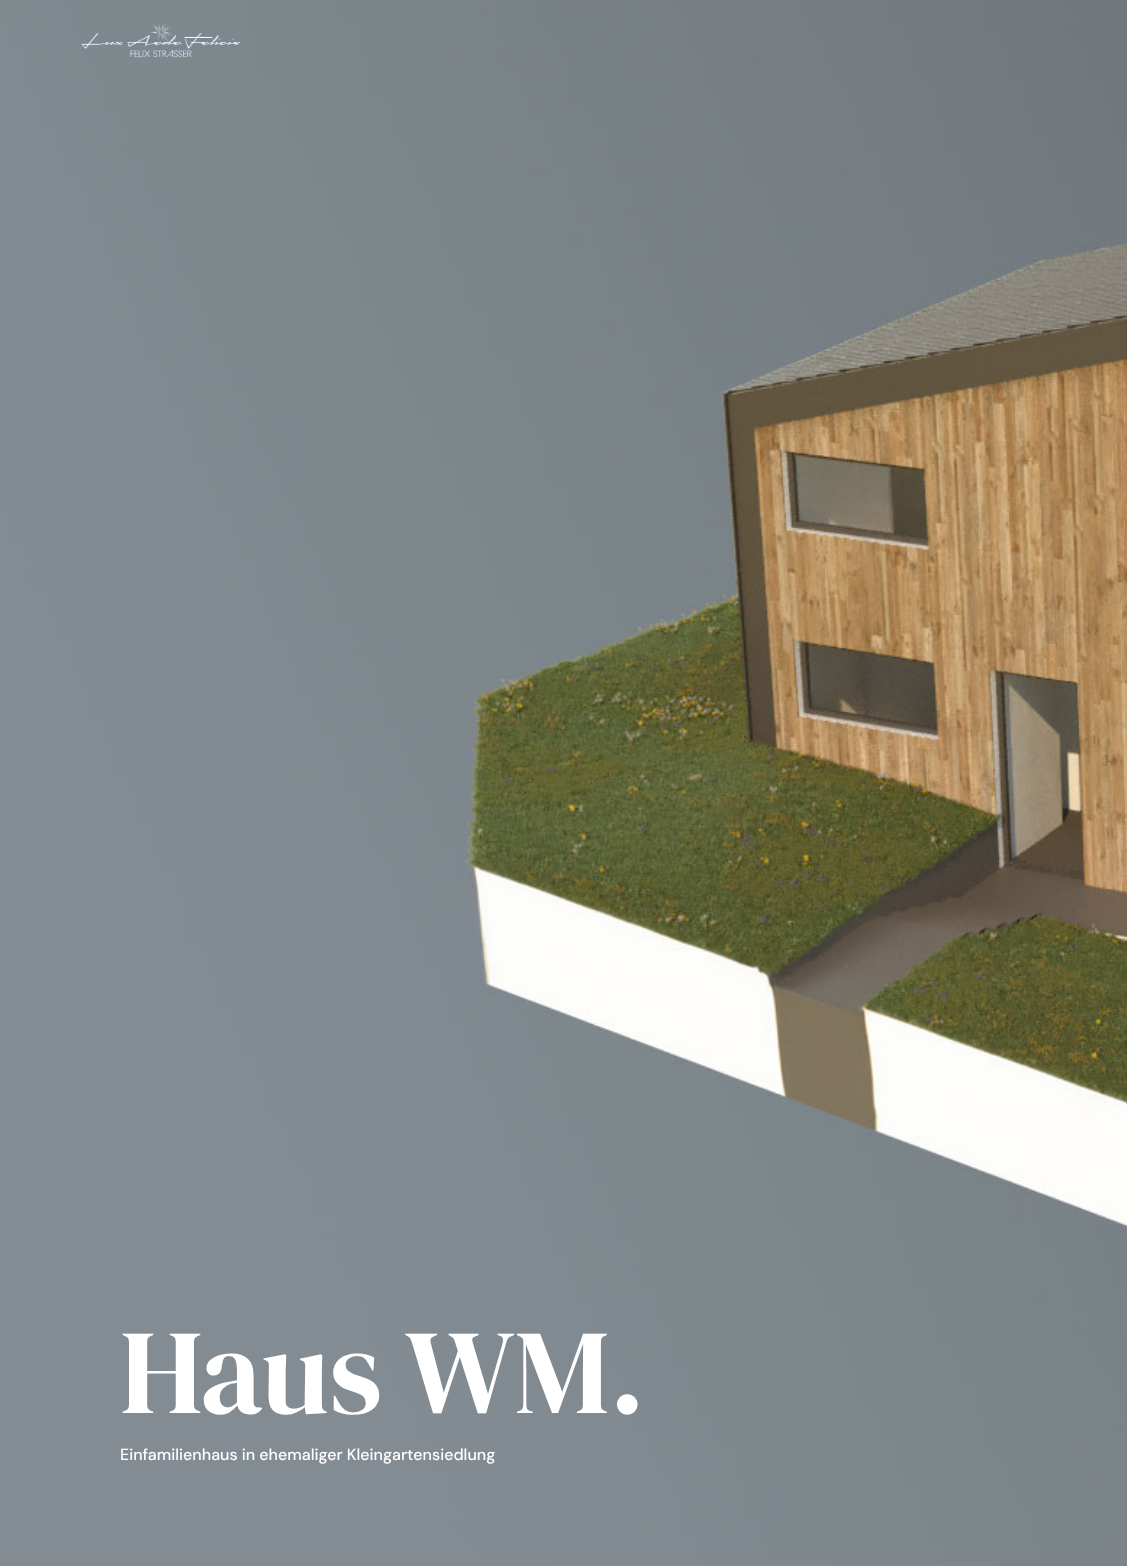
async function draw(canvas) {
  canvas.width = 1127
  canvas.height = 1566
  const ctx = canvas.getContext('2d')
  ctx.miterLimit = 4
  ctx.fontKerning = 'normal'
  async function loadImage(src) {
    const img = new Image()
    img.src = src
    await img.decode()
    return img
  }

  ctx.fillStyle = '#fff'
  ctx.fillRect(0, 0, 1127, 1566)
  ctx.drawImage(await loadImage('image1.png'), 0, 0, 1127, 1566)
  ctx.drawImage(await loadImage('image0.png'), 81, 23, 160, 35)
  ctx.letterSpacing = '-0.25px'
  ctx.font = '120px DM Serif Display'
  ctx.fillText('Haus WM.', 120, 1413)
  ctx.letterSpacing = '0px'
  ctx.font = '500 16px DM Sans'
  ctx.fillText('Einfamilienhaus in ehemaliger Kleingartensiedlung', 120, 1460)
}

draw(document.querySelector('canvas'))
